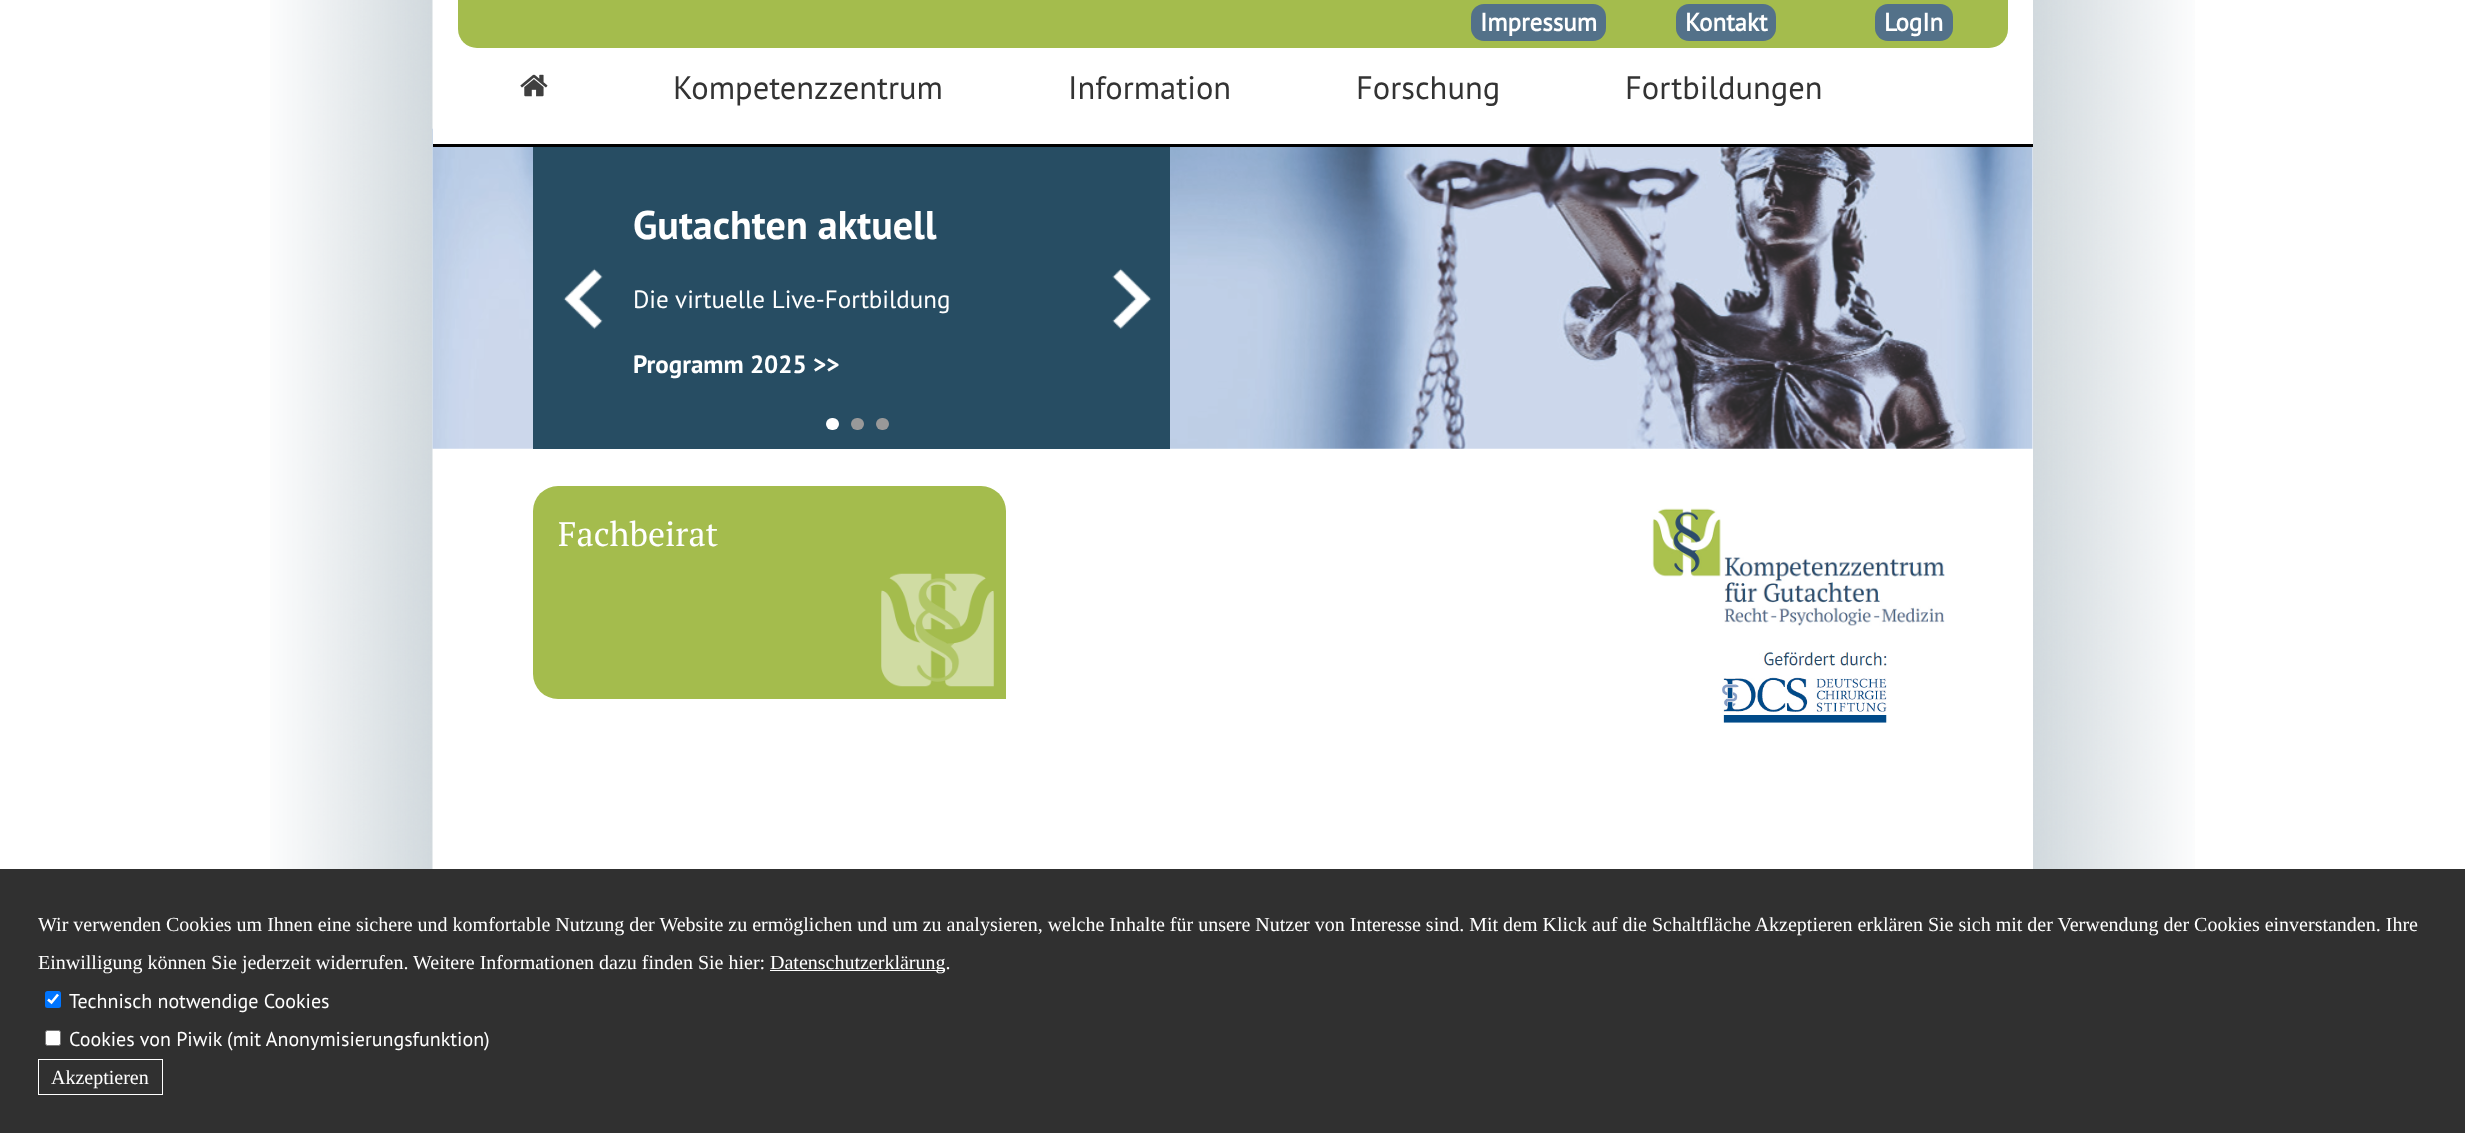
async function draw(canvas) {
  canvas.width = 2465
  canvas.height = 1133
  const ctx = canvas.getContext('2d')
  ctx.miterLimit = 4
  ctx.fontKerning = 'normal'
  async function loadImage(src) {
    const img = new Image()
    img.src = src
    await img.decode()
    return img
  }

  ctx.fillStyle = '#fff'
  ctx.fillRect(0, 0, 2465, 1133)
  ctx.drawImage(await loadImage('image0.png'), 270, 0, 1925, 869)
  ctx.fillRect(2032, 0, 1, 869)
  ctx.fillStyle = '#a4bc4d'
  ctx.beginPath()
  ctx.roundRect(458, 0, 1550, 48, [0, 0, 19, 19])
  ctx.fill()
  ctx.fillStyle = '#537189'
  ctx.beginPath()
  ctx.roundRect(1471, 4, 135, 37, 13)
  ctx.fill()
  ctx.font = 'bold 25px PT Sans'
  ctx.fillStyle = '#fff'
  ctx.fillText('Impressum', 1480, 31)
  ctx.fillStyle = '#537189'
  ctx.beginPath()
  ctx.roundRect(1676, 4, 100, 37, 13)
  ctx.fill()
  ctx.fillStyle = '#fff'
  ctx.fillText('Kontakt', 1685, 31)
  ctx.fillStyle = '#537189'
  ctx.beginPath()
  ctx.roundRect(1875, 4, 78, 37, 13)
  ctx.fill()
  ctx.fillStyle = '#fff'
  ctx.fillText('LogIn', 1884, 31)
  ctx.drawImage(await loadImage('image2.png'), 432, 128, 1601, 321)
  ctx.fillRect(433, 128, 1600, 16)
  ctx.fillStyle = '#000'
  ctx.fillRect(433, 144, 1600, 3)
  ctx.drawImage(await loadImage('image1.png'), 520, 74, 28, 23)
  ctx.font = '32.5px PT Sans'
  ctx.fillStyle = '#333'
  ctx.fillText('Kompetenzzentrum', 673, 99)
  ctx.fillText('Information', 1068, 99)
  ctx.fillText('Forschung', 1356, 99)
  ctx.fillText('Fortbildungen', 1625, 99)
  ctx.fillStyle = '#274d63'
  ctx.fillRect(533, 147, 637, 302)
  ctx.font = 'bold 40px "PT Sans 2"'
  ctx.fillStyle = '#fff'
  ctx.fillText('Gutachten aktuell', 633, 239)
  ctx.font = '25px PT Sans'
  ctx.fillText('Die virtuelle Live-Fortbildung', 633, 308)
  ctx.font = 'bold 25px "PT Sans 2"'
  ctx.fillText('Programm 2025 >>', 633, 373)
  ctx.drawImage(await loadImage('image3.png'), 563, 268, 40, 61)
  ctx.drawImage(await loadImage('image4.png'), 1112, 268, 40, 61)
  ctx.beginPath()
  ctx.roundRect(826, 418, 13, 12, 6)
  ctx.fill()
  ctx.fillStyle = '#999'
  ctx.beginPath()
  ctx.roundRect(851, 418, 13, 12, 6)
  ctx.fill()
  ctx.beginPath()
  ctx.roundRect(876, 418, 13, 12, 6)
  ctx.fill()
  ctx.fillStyle = '#a4bc4d'
  ctx.beginPath()
  ctx.roundRect(533, 486, 473, 213, [25, 25, 0, 25])
  ctx.fill()
  ctx.font = '34px PT Serif'
  ctx.fillStyle = '#fff'
  ctx.fillText('Fachbeirat', 558, 546)
  ctx.drawImage(await loadImage('image5.png'), 881, 573, 113, 114)
  ctx.drawImage(await loadImage('image6.png'), 1652, 508, 293, 118)
  ctx.drawImage(await loadImage('image7.png'), 1722, 651, 165, 72)
  ctx.fillStyle = '#303030'
  ctx.fillRect(0, 869, 2465, 264)
  ctx.font = '20px Liberation Serif'
  ctx.fillStyle = '#fff'
  ctx.fillText('Wir verwenden Cookies um Ihnen eine sichere und komfortable Nutzung der Website zu ermöglichen und um zu analysieren, welche Inhalte für unsere Nutzer von Interesse sind. Mit dem Klick auf die Schaltfläche Akzeptieren erklären Sie sich mit der Verwendung der Cookies einverstanden. Ihre', 38, 931)
  ctx.fillText('Einwilligung können Sie jederzeit widerrufen.', 38, 969)
  ctx.fillText('Weitere Informationen dazu finden Sie hier:', 413, 969)
  ctx.fillRect(770, 970, 175, 1)
  ctx.fillText('Datenschutzerklärung.', 770, 969)
  ctx.fillStyle = '#0075ff'
  ctx.beginPath()
  ctx.roundRect(45, 991, 16, 17, 2.5)
  ctx.fill()
  ctx.beginPath()
  ctx.moveTo(48, 999.5)
  ctx.lineTo(51.5, 1002.5)
  ctx.lineTo(58, 994.5)
  ctx.strokeStyle = '#fff'
  ctx.lineWidth = 2.6
  ctx.stroke()
  ctx.font = '20px "PT Sans 2"'
  ctx.fillStyle = '#fff'
  ctx.fillText('Technisch notwendige Cookies', 69, 1008)
  ctx.beginPath()
  ctx.roundRect(45.5, 1030.5, 15, 15, 2)
  ctx.fill()
  ctx.strokeStyle = '#767676'
  ctx.lineWidth = 1
  ctx.stroke()
  ctx.fillText('Cookies von Piwik (mit Anonymisierungsfunktion)', 69, 1046)
  ctx.strokeStyle = '#fff'
  ctx.strokeRect(38.5, 1059.5, 124, 35)
  ctx.font = '20px Liberation Serif'
  ctx.fillText('Akzeptieren', 51, 1084)
}

draw(document.querySelector('canvas'))
